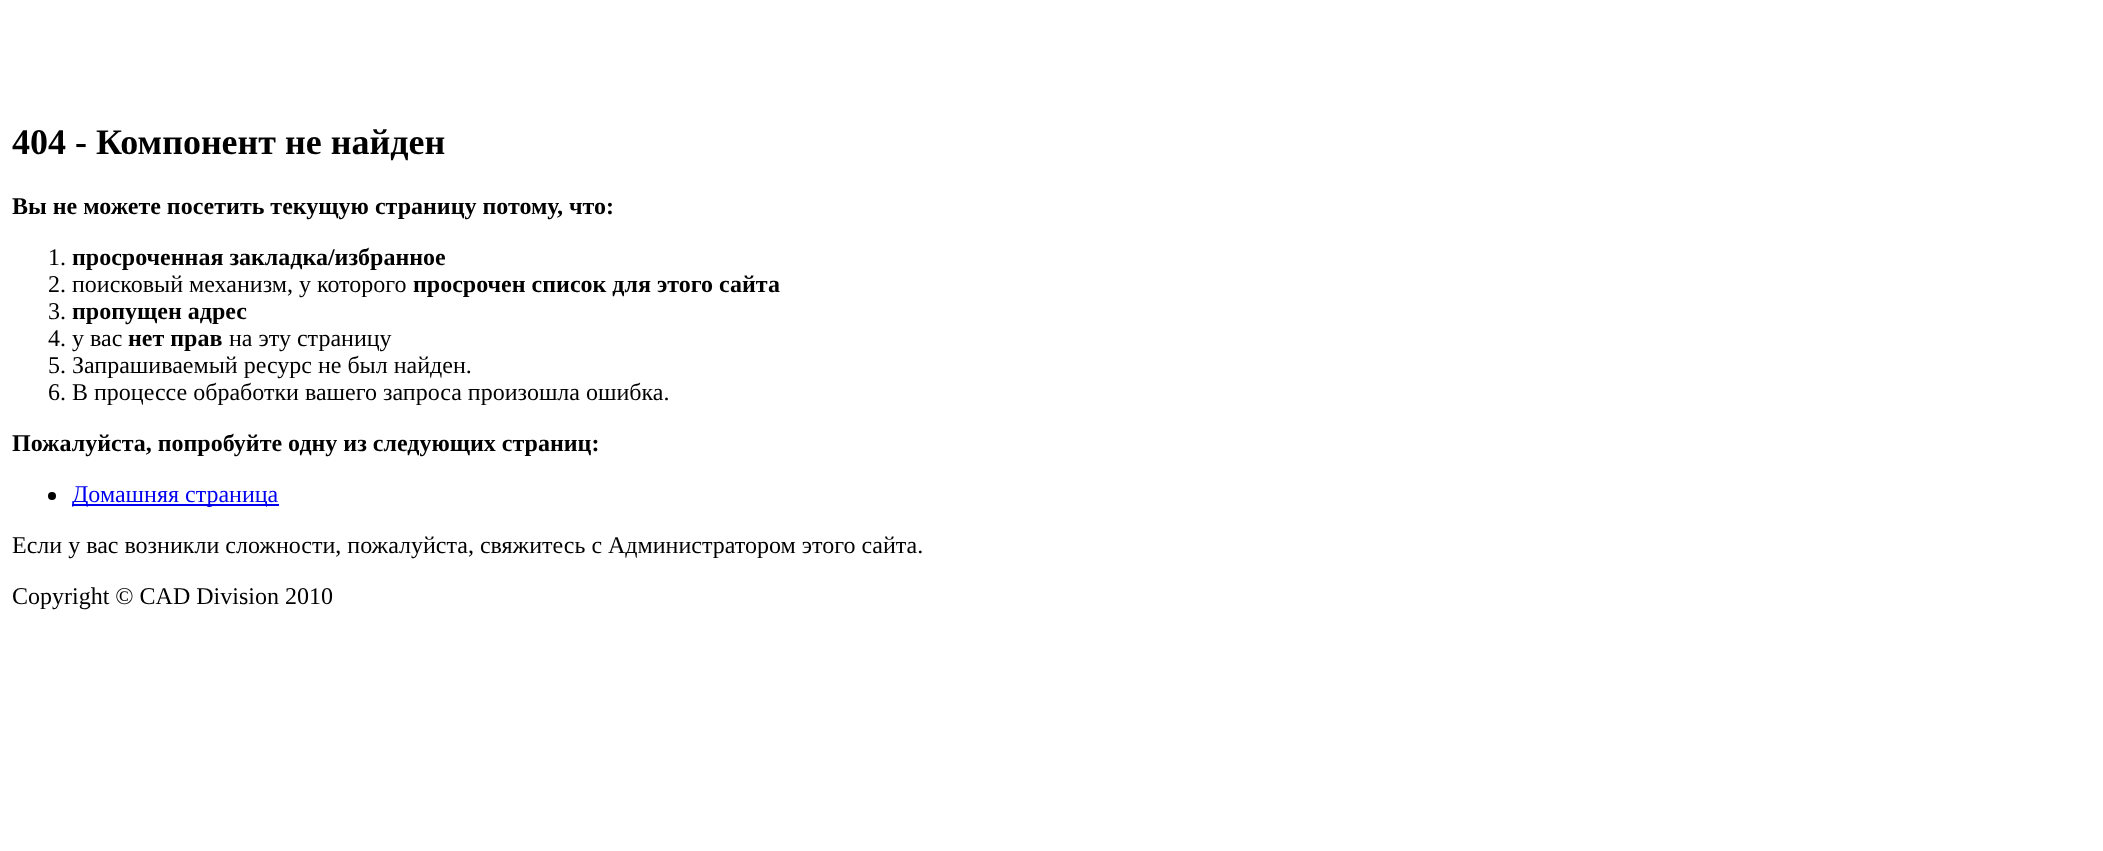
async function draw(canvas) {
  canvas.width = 2103
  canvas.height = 851
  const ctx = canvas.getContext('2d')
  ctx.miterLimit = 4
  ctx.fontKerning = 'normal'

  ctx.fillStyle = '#fff'
  ctx.fillRect(0, 0, 2103, 851)
  ctx.font = 'bold 36px Liberation Serif'
  ctx.fillStyle = '#000'
  ctx.fillText('404 - Компонент не найден', 12, 154)
  ctx.font = 'bold 24px Liberation Serif'
  ctx.fillText('Вы не можете посетить текущую страницу потому, что:', 12, 214)
  ctx.font = '24px Liberation Serif'
  ctx.fillText('1.', 48, 265)
  ctx.font = 'bold 24px Liberation Serif'
  ctx.fillText('просроченная закладка/избранное', 72, 265)
  ctx.font = '24px Liberation Serif'
  ctx.fillText('2. поисковый механизм, у которого', 48, 292)
  ctx.font = 'bold 24px Liberation Serif'
  ctx.fillText('просрочен список для этого сайта', 413, 292)
  ctx.font = '24px Liberation Serif'
  ctx.fillText('3.', 48, 319)
  ctx.font = 'bold 24px Liberation Serif'
  ctx.fillText('пропущен адрес', 72, 319)
  ctx.font = '24px Liberation Serif'
  ctx.fillText('4. у вас', 48, 346)
  ctx.font = 'bold 24px Liberation Serif'
  ctx.fillText('нет прав', 128, 346)
  ctx.font = '24px Liberation Serif'
  ctx.fillText('на эту страницу', 229, 346)
  ctx.fillText('5. Запрашиваемый ресурс не был найден.', 48, 373)
  ctx.fillText('6. В процессе обработки вашего запроса произошла ошибка.', 48, 400)
  ctx.font = 'bold 24px Liberation Serif'
  ctx.fillText('Пожалуйста, попробуйте одну из следующих страниц:', 12, 451)
  ctx.beginPath()
  ctx.arc(52, 496, 4, 0, 2 * Math.PI)
  ctx.fill()
  ctx.fillStyle = '#00e'
  ctx.fillRect(72, 504, 207, 2)
  ctx.font = '24px Liberation Serif'
  ctx.fillText('Домашняя страница', 72, 502)
  ctx.fillStyle = '#000'
  ctx.fillText('Если у вас возникли сложности, пожалуйста, свяжитесь с Администратором этого сайта.', 12, 553)
  ctx.fillText('Copyright © CAD Division 2010', 12, 604)
}

draw(document.querySelector('canvas'))
